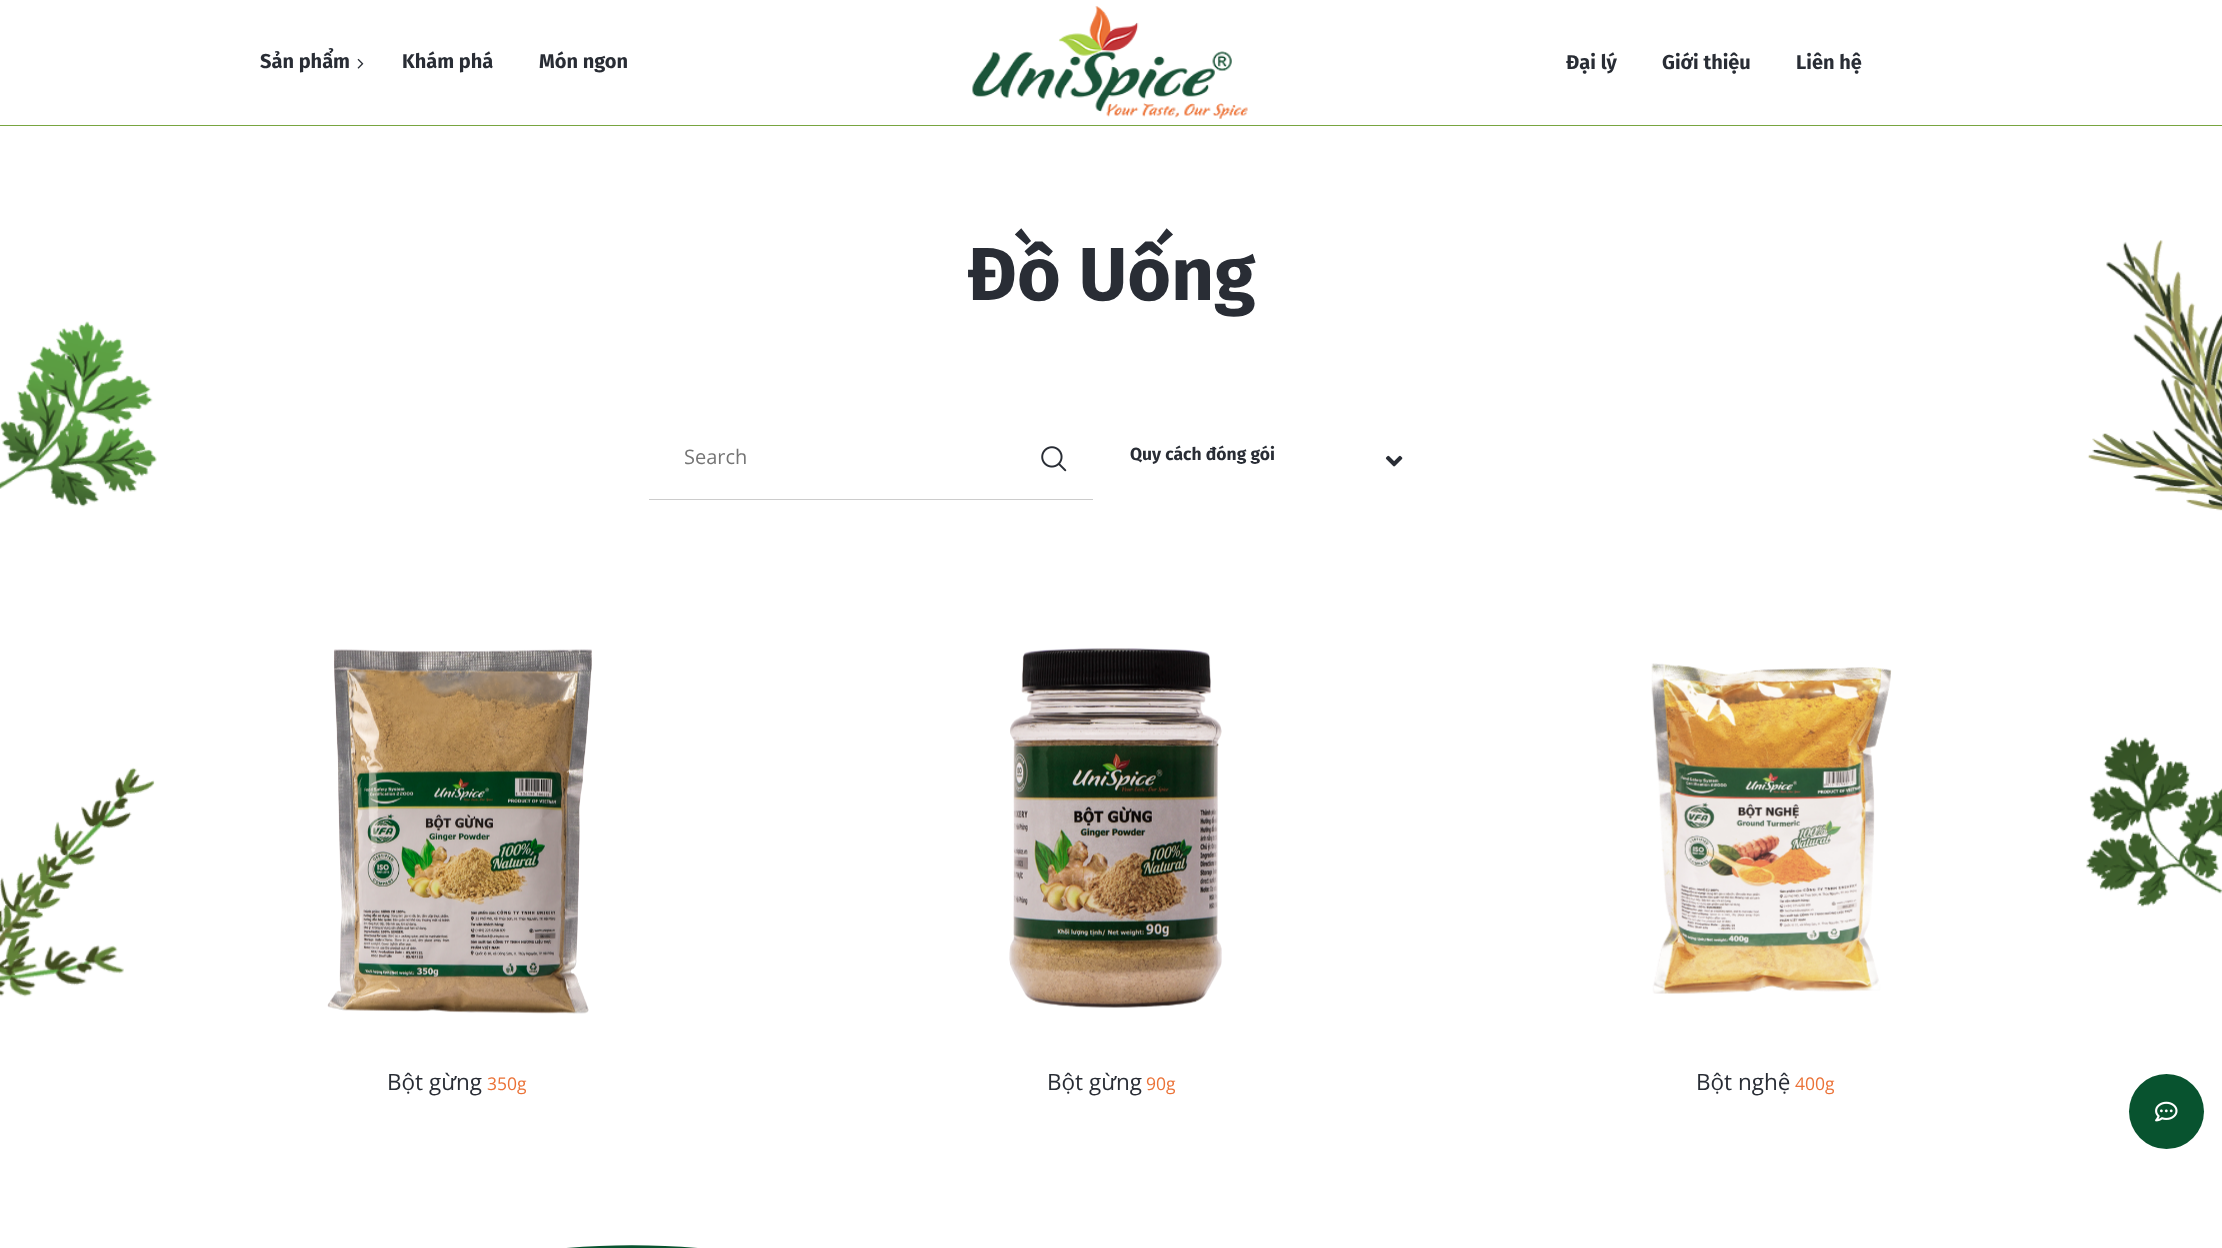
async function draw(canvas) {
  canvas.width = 2222
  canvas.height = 1248
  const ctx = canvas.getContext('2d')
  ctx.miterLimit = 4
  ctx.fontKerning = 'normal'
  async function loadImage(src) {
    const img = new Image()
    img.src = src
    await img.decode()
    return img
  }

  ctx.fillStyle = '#fff'
  ctx.fillRect(0, 0, 2222, 1248)
  ctx.fillStyle = '#78a540'
  ctx.fillRect(0, 125, 2222, 1)
  ctx.font = 'bold 20px Fira Sans'
  ctx.fillStyle = '#292d35'
  ctx.fillText('Sản phẩm', 260, 68)
  ctx.drawImage(await loadImage('image0.png'), 357, 58, 7, 11)
  ctx.fillText('Khám phá', 402, 68)
  ctx.fillText('Món ngon', 539, 68)
  ctx.drawImage(await loadImage('image1.png'), 972, 6, 276, 113)
  ctx.fillText('Đại lý', 1566, 69)
  ctx.fillText('Giới thiệu', 1662, 69)
  ctx.fillText('Liên hệ', 1796, 69)
  ctx.font = 'bold 75px Fira Sans'
  ctx.fillText('Đồ Uống', 967, 300)
  ctx.drawImage(await loadImage('image2.png'), 0, 321, 157, 676)
  ctx.drawImage(await loadImage('image3.png'), 2086, 240, 136, 667)
  ctx.fillStyle = '#ccc'
  ctx.fillRect(649, 499, 444, 1)
  ctx.font = '20px Open Sans'
  ctx.fillStyle = '#757575'
  ctx.fillText('Search', 684, 464)
  ctx.drawImage(await loadImage('image4.png'), 1041, 446, 26, 26)
  ctx.font = 'bold 17.5px Fira Sans'
  ctx.fillStyle = '#292d35'
  ctx.fillText('Quy cách đóng gói', 1130, 460)
  ctx.drawImage(await loadImage('image5.png'), 1385, 455, 18, 12)
  ctx.drawImage(await loadImage('image6.png'), 327, 649, 265, 365)
  ctx.font = '22.5px Open Sans'
  ctx.fillText('Bột gừng', 387, 1090)
  ctx.font = '17.5px Open Sans'
  ctx.fillStyle = '#eb7237'
  ctx.fillText('350g', 487, 1090)
  ctx.drawImage(await loadImage('image7.png'), 1009, 648, 213, 360)
  ctx.font = '22.5px Open Sans'
  ctx.fillStyle = '#292d35'
  ctx.fillText('Bột gừng', 1047, 1090)
  ctx.font = '17.5px Open Sans'
  ctx.fillStyle = '#eb7237'
  ctx.fillText('90g', 1146, 1090)
  ctx.drawImage(await loadImage('image8.png'), 1651, 663, 241, 331)
  ctx.font = '22.5px Open Sans'
  ctx.fillStyle = '#292d35'
  ctx.fillText('Bột nghệ', 1696, 1090)
  ctx.font = '17.5px Open Sans'
  ctx.fillStyle = '#eb7237'
  ctx.fillText('400g', 1795, 1090)
  ctx.fillStyle = '#08532f'
  ctx.beginPath()
  ctx.arc(2166.5, 1111.5, 37.5, 0, 2 * Math.PI)
  ctx.fill()
  ctx.drawImage(await loadImage('image9.png'), 2155, 1101, 23, 21)
  ctx.beginPath()
  ctx.moveTo(-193, 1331)
  ctx.lineTo(-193, 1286)
  ctx.bezierCurveTo(122, 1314, 272, 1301, 457, 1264)
  ctx.bezierCurveTo(642, 1227, 752, 1248, 967, 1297)
  ctx.bezierCurveTo(1182, 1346, 1477, 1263, 1699, 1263)
  ctx.bezierCurveTo(1921, 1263, 2054, 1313, 2211, 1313)
  ctx.lineTo(2211, 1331)
  ctx.closePath()
  ctx.fill()
}

draw(document.querySelector('canvas'))
